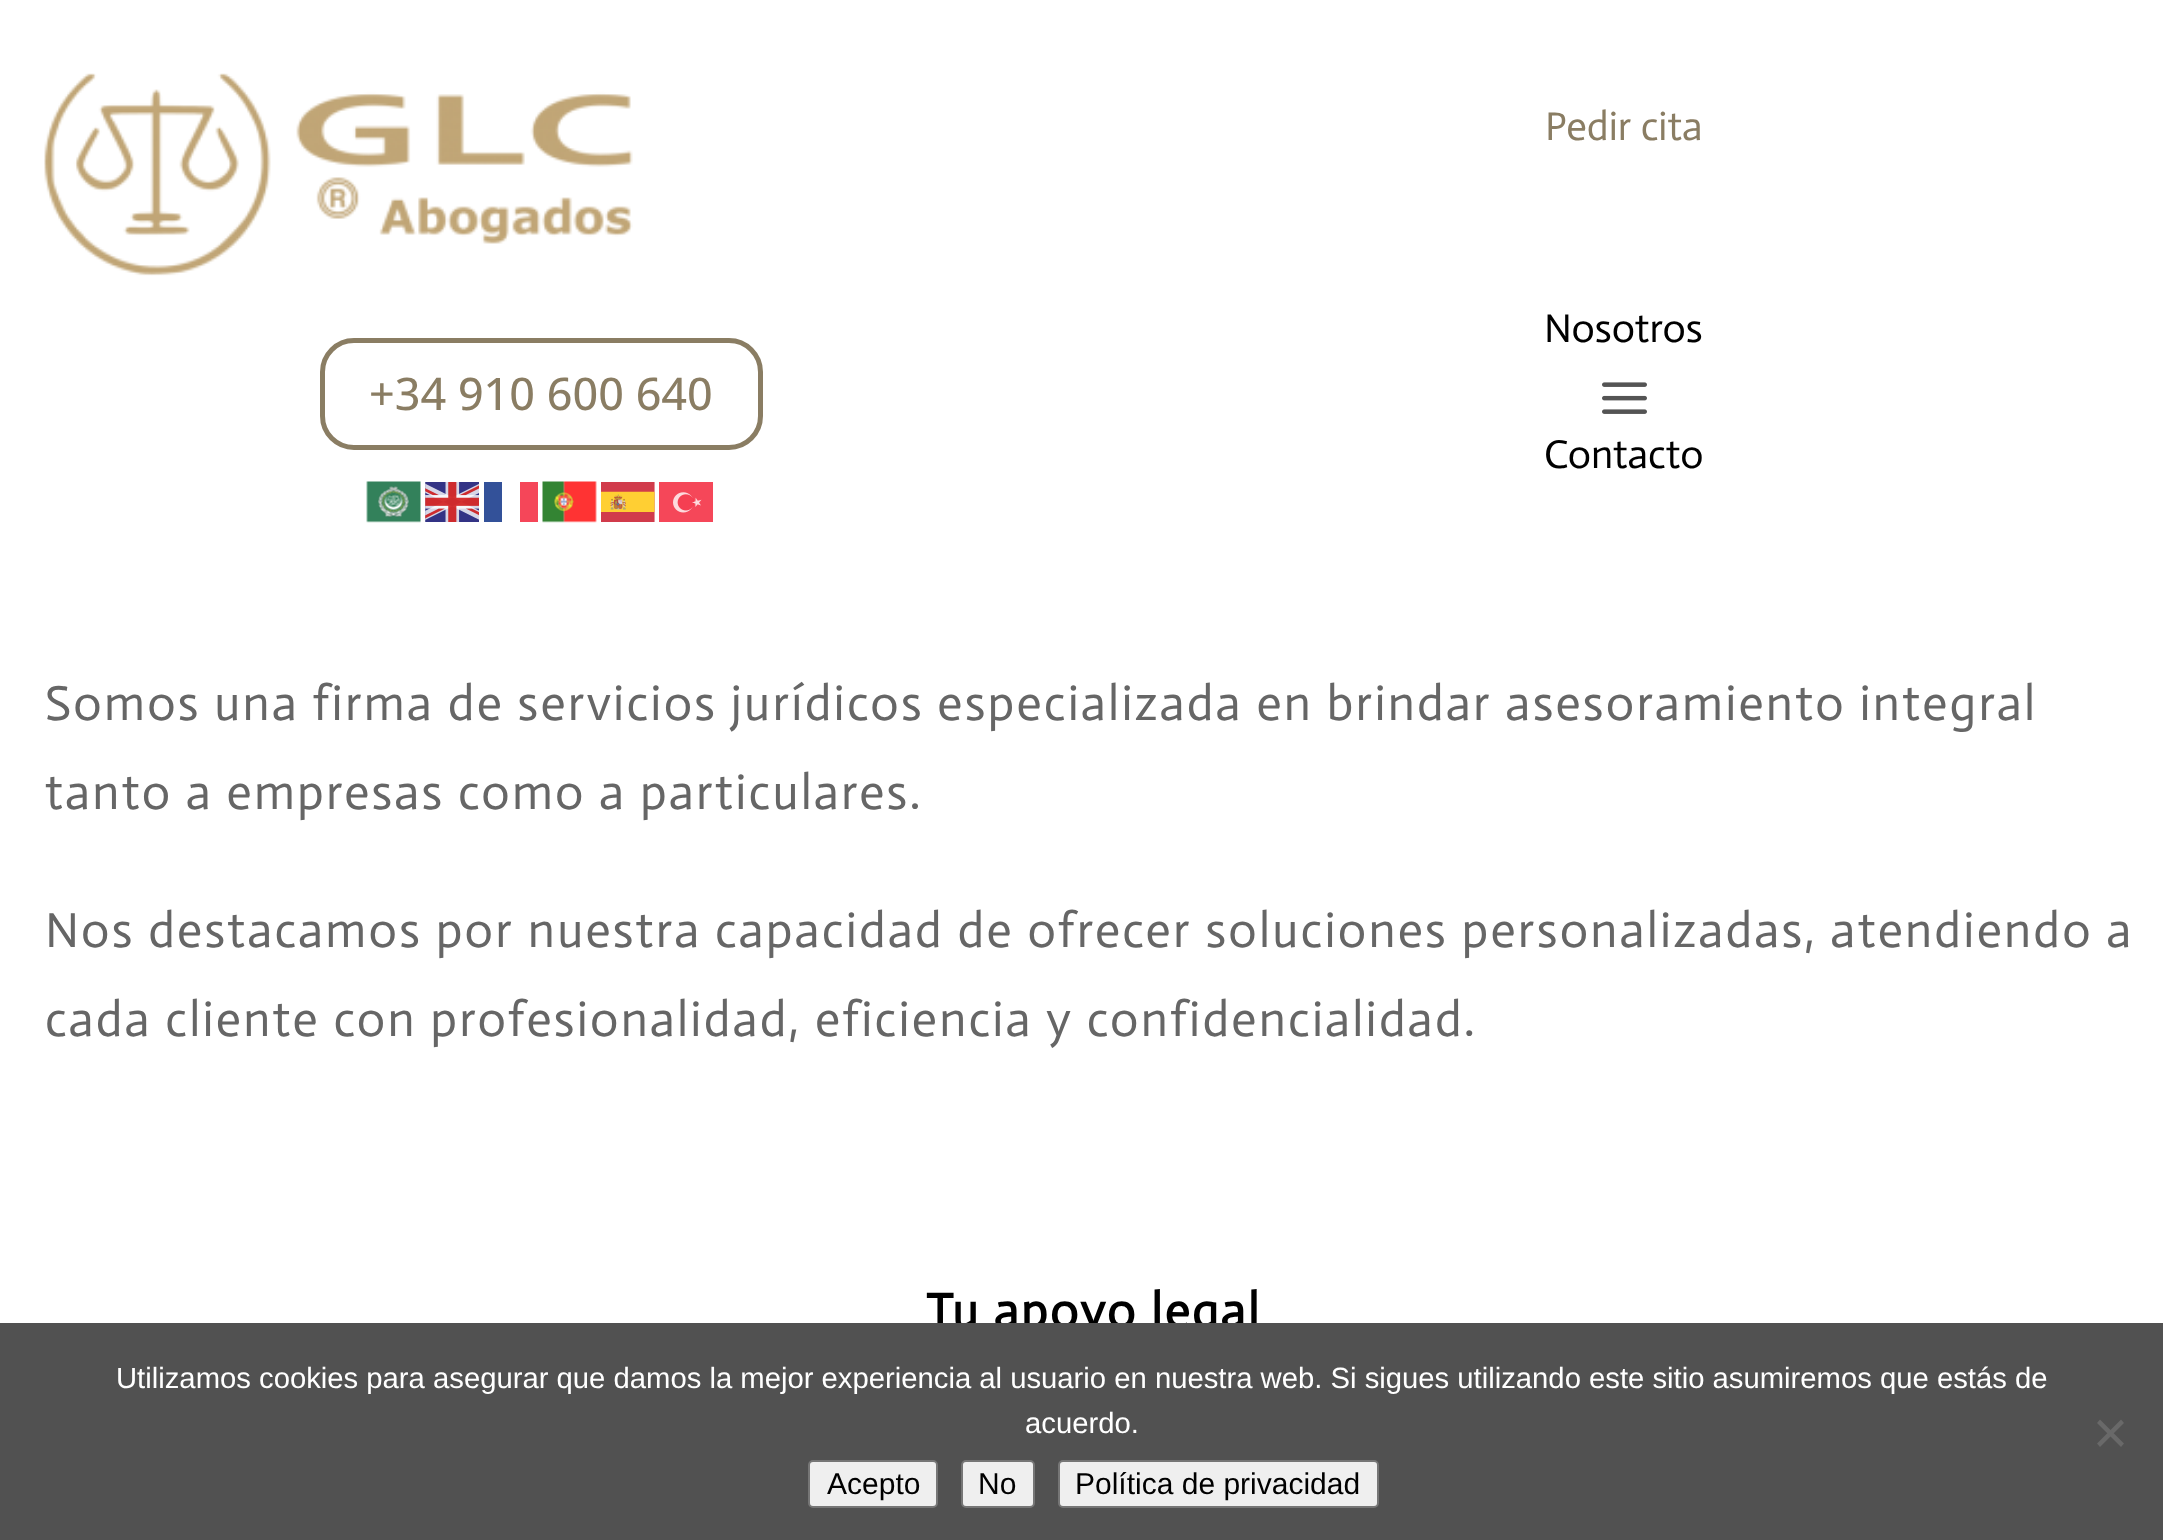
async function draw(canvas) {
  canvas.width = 2163
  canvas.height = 1540
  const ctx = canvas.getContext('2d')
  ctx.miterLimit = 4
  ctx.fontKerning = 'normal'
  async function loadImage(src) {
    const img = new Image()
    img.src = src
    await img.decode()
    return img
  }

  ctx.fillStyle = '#fff'
  ctx.fillRect(0, 0, 2163, 1540)
  ctx.drawImage(await loadImage('image0.png'), 44, 73, 589, 203)
  ctx.font = '40.5px Actor'
  ctx.fillStyle = '#8a7d63'
  ctx.fillText('Pedir cita', 1545, 140)
  ctx.beginPath()
  ctx.roundRect(322.5, 340.5, 438, 107, 31.5)
  ctx.strokeStyle = '#8a7d63'
  ctx.lineWidth = 5
  ctx.stroke()
  ctx.font = '500 45px Open Sans'
  ctx.fillText('+34 910 600 640', 369, 410)
  ctx.drawImage(await loadImage('image1.png'), 366, 481, 55, 42)
  ctx.drawImage(await loadImage('image2.png'), 425, 482, 54, 40)
  ctx.fillStyle = '#335199'
  ctx.fillRect(484, 482, 18, 40)
  ctx.fillStyle = '#f54659'
  ctx.fillRect(520, 482, 18, 40)
  ctx.drawImage(await loadImage('image3.png'), 542, 481, 55, 42)
  ctx.drawImage(await loadImage('image4.png'), 601, 482, 54, 40)
  ctx.drawImage(await loadImage('image5.png'), 659, 482, 54, 40)
  ctx.font = '40.5px Actor'
  ctx.fillStyle = '#000'
  ctx.fillText('Nosotros', 1544, 342)
  ctx.drawImage(await loadImage('image6.png'), 1602, 382, 45, 32)
  ctx.fillText('Contacto', 1544, 468)
  ctx.letterSpacing = '2.25px'
  ctx.font = '49.5px Actor'
  ctx.fillStyle = '#666'
  ctx.fillText('Somos una firma de servicios jurídicos especializada en brindar asesoramiento integral', 45, 720)
  ctx.fillText('tanto a empresas como a particulares.', 45, 809)
  ctx.fillText('Nos destacamos por nuestra capacidad de ofrecer soluciones personalizadas, atendiendo a', 45, 947)
  ctx.fillText('cada cliente con profesionalidad, eficiencia y confidencialidad.', 45, 1036)
  ctx.font = 'bold 49.5px Actor'
  ctx.fillStyle = '#000'
  ctx.fillText('Tu apoyo legal', 926, 1328)
  ctx.fillStyle = '#515151'
  ctx.fillRect(0, 1323, 2163, 217)
  ctx.letterSpacing = '0px'
  ctx.font = '29.25px Liberation Sans'
  ctx.fillStyle = '#fff'
  ctx.fillText('Utilizamos cookies para asegurar que damos la mejor experiencia al usuario en nuestra web. Si sigues utilizando este sitio asumiremos que estás de', 116, 1388)
  ctx.fillText('acuerdo.', 1025, 1433)
  ctx.fillStyle = '#696969'
  ctx.beginPath()
  ctx.moveTo(2121, 1419.5)
  ctx.lineTo(2124, 1423)
  ctx.lineTo(2100, 1447)
  ctx.lineTo(2097, 1443.5)
  ctx.closePath()
  ctx.fill()
  ctx.beginPath()
  ctx.moveTo(2097, 1423)
  ctx.lineTo(2100, 1419.5)
  ctx.lineTo(2124, 1443.5)
  ctx.lineTo(2121, 1447)
  ctx.closePath()
  ctx.fill()
  ctx.fillStyle = '#efefef'
  ctx.beginPath()
  ctx.roundRect(809, 1461, 128, 46, 4)
  ctx.fill()
  ctx.strokeStyle = '#767676'
  ctx.lineWidth = 2
  ctx.stroke()
  ctx.font = '30px Liberation Sans'
  ctx.fillStyle = '#000'
  ctx.fillText('Acepto', 827, 1494)
  ctx.fillStyle = '#efefef'
  ctx.beginPath()
  ctx.roundRect(962, 1461, 72, 46, 4)
  ctx.fill()
  ctx.stroke()
  ctx.fillStyle = '#000'
  ctx.fillText('No', 978, 1494)
  ctx.fillStyle = '#efefef'
  ctx.beginPath()
  ctx.roundRect(1059, 1461, 319, 46, 4)
  ctx.fill()
  ctx.stroke()
  ctx.fillStyle = '#000'
  ctx.fillText('Política de privacidad', 1075, 1494)
}

draw(document.querySelector('canvas'))
